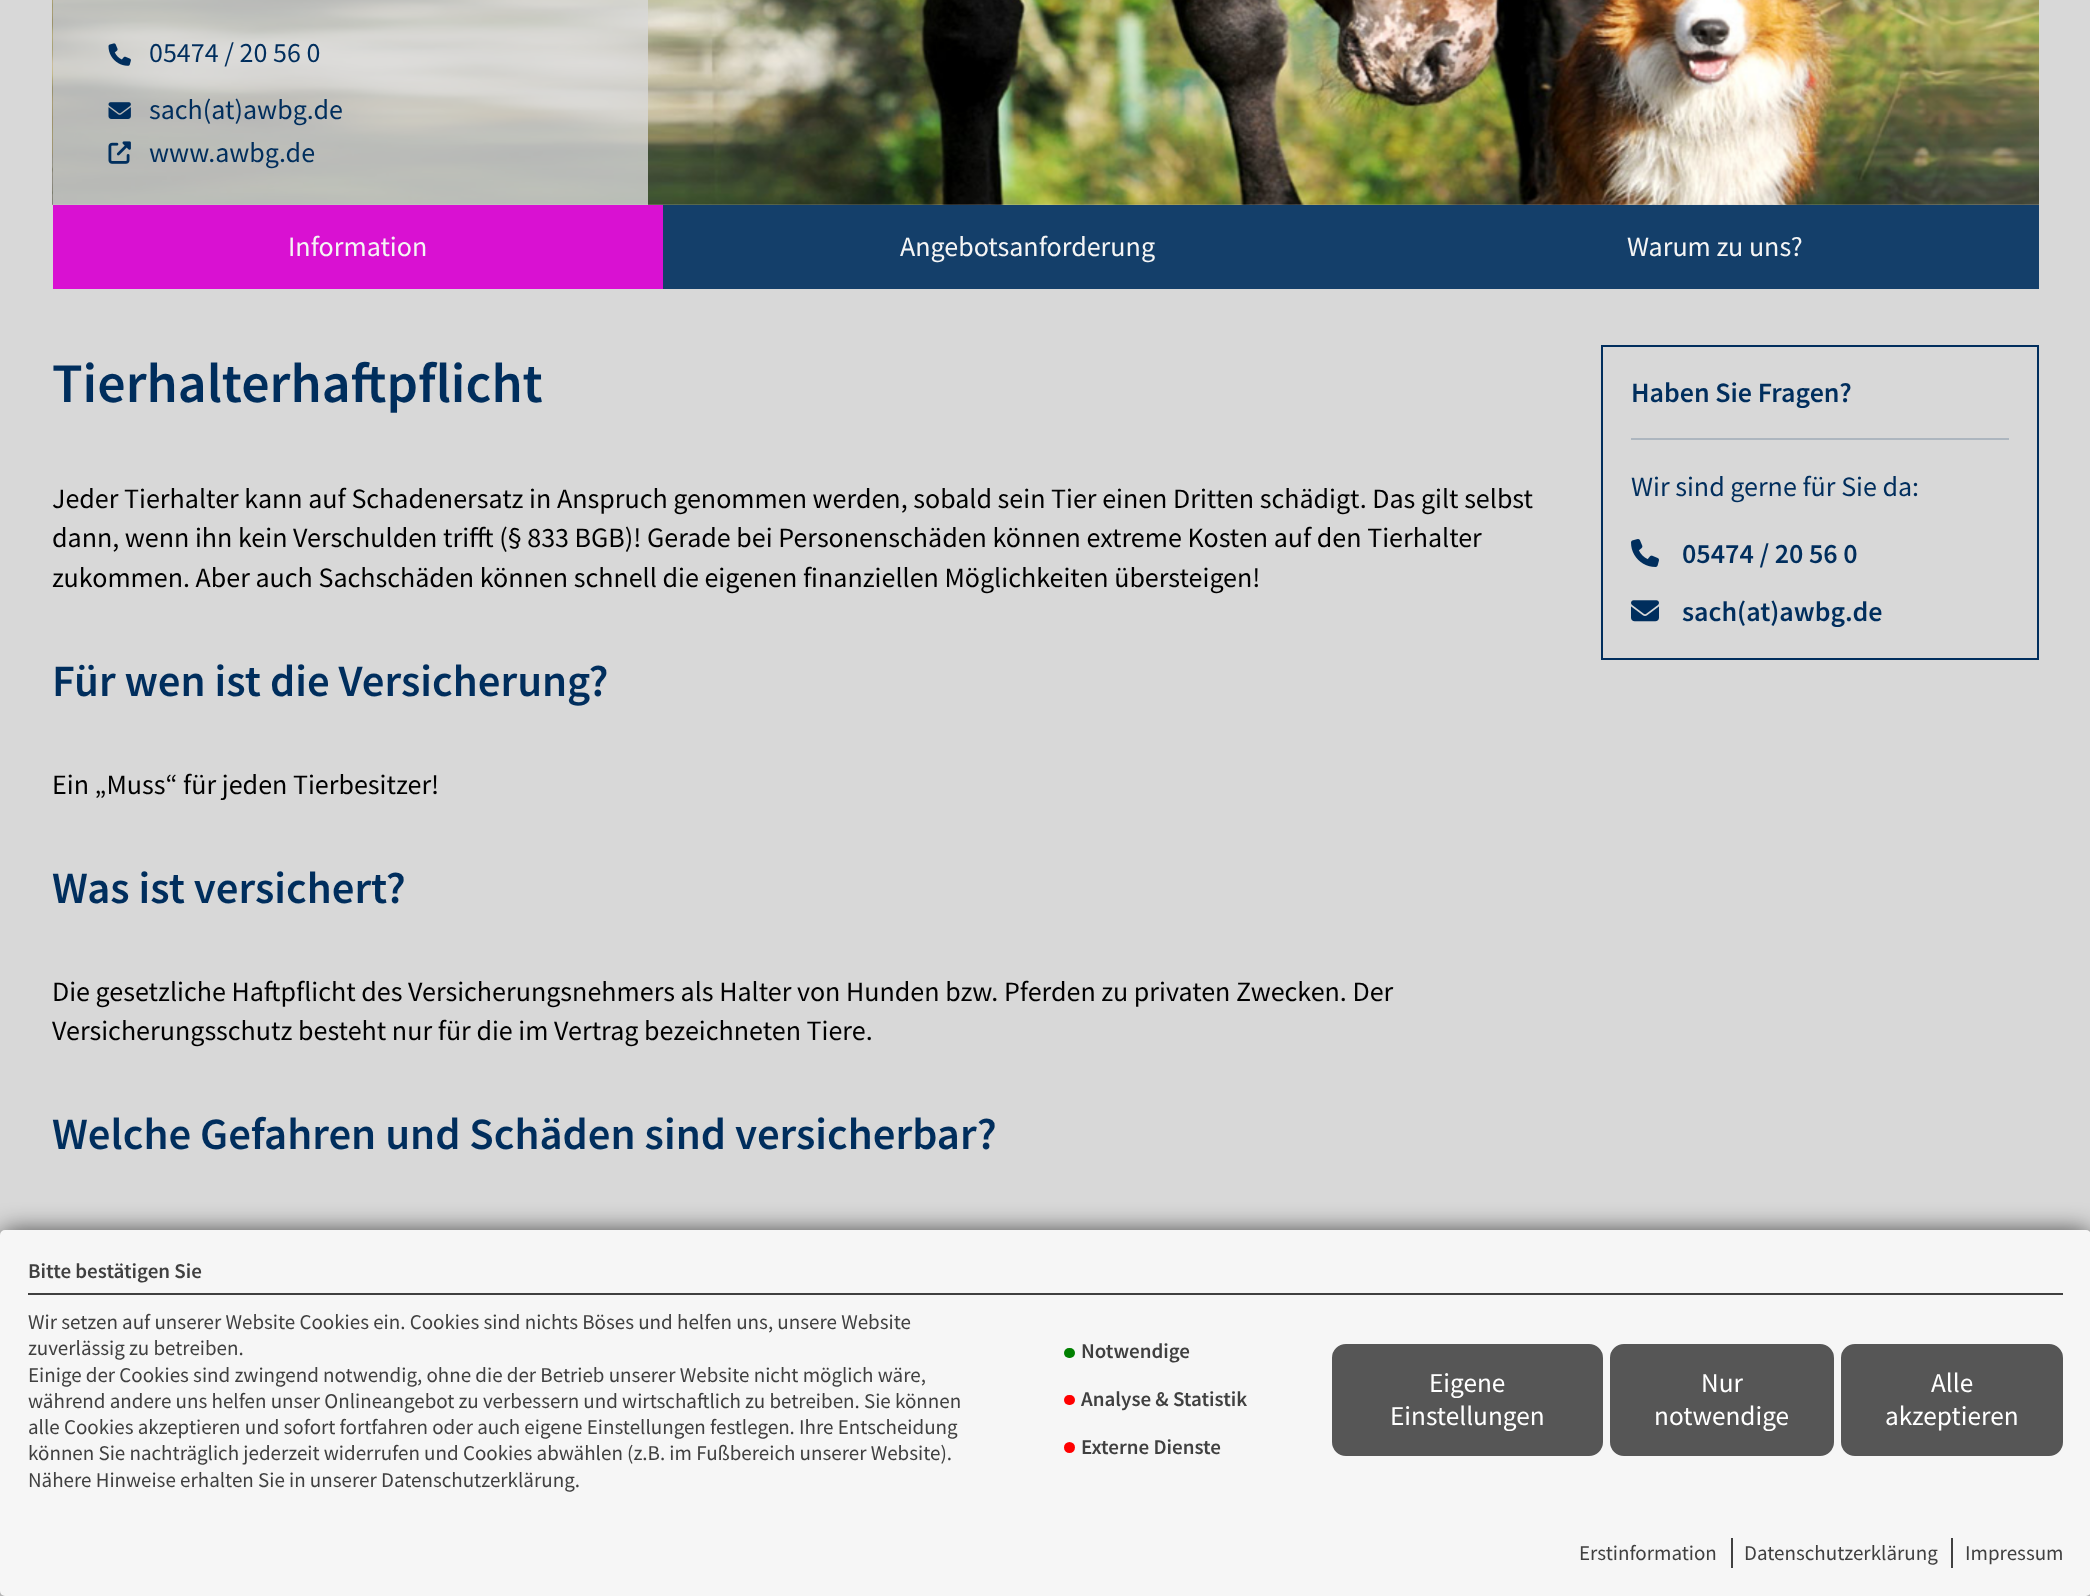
async function draw(canvas) {
  canvas.width = 2090
  canvas.height = 1596
  const ctx = canvas.getContext('2d')
  ctx.miterLimit = 4
  ctx.fontKerning = 'normal'
  async function loadImage(src) {
    const img = new Image()
    img.src = src
    await img.decode()
    return img
  }

  ctx.fillStyle = '#d8d8d8'
  ctx.fillRect(0, 0, 2090, 1596)
  ctx.drawImage(await loadImage('image0.png'), 52, 0, 1, 205)
  ctx.drawImage(await loadImage('image1.png'), 52, 0, 1987, 205)
  ctx.fillStyle = '#d8d8d8cc'
  ctx.fillRect(53, 0, 595, 205)
  ctx.drawImage(await loadImage('image2.png'), 108, 43, 23, 23)
  ctx.font = '28px Source Sans Pro'
  ctx.fillStyle = '#002e5d'
  ctx.fillText('05474 / 20 56 0', 149, 62)
  ctx.drawImage(await loadImage('image3.png'), 108, 102, 23, 17)
  ctx.fillText('sach(at)awbg.de', 149, 119)
  ctx.drawImage(await loadImage('image4.png'), 108, 141, 23, 23)
  ctx.fillText('www.awbg.de', 149, 162)
  ctx.fillStyle = '#143f6a'
  ctx.fillRect(663, 205, 1376, 84)
  ctx.fillStyle = '#d911d2'
  ctx.fillRect(53, 205, 610, 84)
  ctx.fillStyle = '#f5f5f5'
  ctx.fillText('Information', 288, 256)
  ctx.fillText('Angebotsanforderung', 900, 256)
  ctx.fillText('Warum zu uns?', 1627, 256)
  ctx.font = '600 56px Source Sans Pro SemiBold'
  ctx.fillStyle = '#002e5d'
  ctx.fillText('Tierhalterhaftpflicht', 52, 402)
  ctx.font = '28px Source Sans Pro'
  ctx.fillStyle = '#000'
  ctx.fillText('Jeder Tierhalter kann auf Schadenersatz in Anspruch genommen werden, sobald sein Tier einen Dritten schädigt. Das gilt selbst', 52, 508)
  ctx.fillText('dann, wenn ihn kein Verschulden trifft (§ 833 BGB)! Gerade bei Personenschäden können extreme Kosten auf den Tierhalter', 52, 547)
  ctx.fillText('zukommen. Aber auch Sachschäden können schnell die eigenen finanziellen Möglichkeiten übersteigen!', 52, 587)
  ctx.font = '600 44.8px Source Sans Pro SemiBold'
  ctx.fillStyle = '#002e5d'
  ctx.fillText('Für wen ist die Versicherung?', 52, 696)
  ctx.font = '28px Source Sans Pro'
  ctx.fillStyle = '#000'
  ctx.fillText('Ein „Muss“ für jeden Tierbesitzer!', 52, 794)
  ctx.font = '600 44.8px Source Sans Pro SemiBold'
  ctx.fillStyle = '#002e5d'
  ctx.fillText('Was ist versichert?', 52, 903)
  ctx.font = '28px Source Sans Pro'
  ctx.fillStyle = '#000'
  ctx.fillText('Die gesetzliche Haftpflicht des Versicherungsnehmers als Halter von Hunden bzw. Pferden zu privaten Zwecken. Der', 52, 1001)
  ctx.fillText('Versicherungsschutz besteht nur für die im Vertrag bezeichneten Tiere.', 52, 1040)
  ctx.font = '600 44.8px Source Sans Pro SemiBold'
  ctx.fillStyle = '#002e5d'
  ctx.fillText('Welche Gefahren und Schäden sind versicherbar?', 52, 1149)
  ctx.strokeStyle = '#002e5d'
  ctx.lineWidth = 2
  ctx.strokeRect(1602, 346, 436, 313)
  ctx.fillStyle = '#adb6bf'
  ctx.fillRect(1631, 438, 378, 2)
  ctx.font = '600 28px Source Sans Pro SemiBold'
  ctx.fillStyle = '#002e5d'
  ctx.fillText('Haben Sie Fragen?', 1631, 402)
  ctx.font = '28px Source Sans Pro'
  ctx.fillText('Wir sind gerne für Sie da:', 1631, 496)
  ctx.drawImage(await loadImage('image5.png'), 1631, 539, 28, 28)
  ctx.font = '600 28px Source Sans Pro SemiBold'
  ctx.fillText('05474 / 20 56 0', 1682, 563)
  ctx.drawImage(await loadImage('image6.png'), 1631, 600, 28, 22)
  ctx.fillText('sach(at)awbg.de', 1682, 621)
  ctx.fillStyle = '#000000bf'
  ctx.filter = 'blur(13px)'
  ctx.beginPath()
  ctx.roundRect(2, 1232, 2088, 362, 4)
  ctx.fill()
  ctx.filter = 'none'
  ctx.fillStyle = '#f6f6f6'
  ctx.beginPath()
  ctx.roundRect(0, 1230, 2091, 366, 5)
  ctx.fill()
  ctx.fillStyle = '#404040'
  ctx.fillRect(28, 1293, 2035, 2)
  ctx.font = '600 21px Source Sans Pro SemiBold'
  ctx.fillText('Bitte bestätigen Sie', 28, 1278)
  ctx.font = '21px Source Sans Pro'
  ctx.fillText('Wir setzen auf unserer Website Cookies ein. Cookies sind nichts Böses und helfen uns, unsere Website', 28, 1329)
  ctx.fillText('zuverlässig zu betreiben.', 28, 1355)
  ctx.fillText('Einige der Cookies sind zwingend notwendig, ohne die der Betrieb unserer Website nicht möglich wäre,', 28, 1382)
  ctx.fillText('während andere uns helfen unser Onlineangebot zu verbessern und wirtschaftlich zu betreiben. Sie können', 28, 1408)
  ctx.fillText('alle Cookies akzeptieren und sofort fortfahren oder auch eigene Einstellungen festlegen. Ihre Entscheidung', 28, 1434)
  ctx.fillText('können Sie nachträglich jederzeit widerrufen und Cookies abwählen (z.B. im Fußbereich unserer Website).', 28, 1460)
  ctx.fillText('Nähere Hinweise erhalten Sie in unserer Datenschutzerklärung.', 28, 1487)
  ctx.fillStyle = '#008000'
  ctx.beginPath()
  ctx.roundRect(1064, 1348, 11, 10, 5)
  ctx.fill()
  ctx.font = '600 21px Source Sans Pro SemiBold'
  ctx.fillStyle = '#404040'
  ctx.fillText('Notwendige', 1081, 1358)
  ctx.fillStyle = '#f00'
  ctx.beginPath()
  ctx.roundRect(1064, 1395, 11, 10, 5)
  ctx.fill()
  ctx.fillStyle = '#404040'
  ctx.fillText('Analyse & Statistik', 1081, 1406)
  ctx.fillStyle = '#f00'
  ctx.beginPath()
  ctx.arc(1069.5, 1447.5, 5.5, 0, 2 * Math.PI)
  ctx.fill()
  ctx.fillStyle = '#404040'
  ctx.fillText('Externe Dienste', 1081, 1454)
  ctx.fillStyle = '#565656'
  ctx.beginPath()
  ctx.roundRect(1333, 1345, 269, 110, 13)
  ctx.fill()
  ctx.strokeStyle = '#565656'
  ctx.stroke()
  ctx.font = '27.25px Source Sans Pro'
  ctx.fillStyle = '#fff'
  ctx.fillText('Eigene', 1429, 1392)
  ctx.fillText('Einstellungen', 1390, 1425)
  ctx.fillStyle = '#565656'
  ctx.beginPath()
  ctx.roundRect(1611, 1345, 222, 110, 13)
  ctx.fill()
  ctx.stroke()
  ctx.fillStyle = '#fff'
  ctx.fillText('Nur', 1701, 1392)
  ctx.fillText('notwendige', 1654, 1425)
  ctx.fillStyle = '#565656'
  ctx.beginPath()
  ctx.roundRect(1842, 1345, 220, 110, 13)
  ctx.fill()
  ctx.stroke()
  ctx.fillStyle = '#fff'
  ctx.fillText('Alle', 1931, 1392)
  ctx.fillText('akzeptieren', 1885, 1425)
  ctx.font = '21px Source Sans Pro'
  ctx.fillStyle = '#404040'
  ctx.fillText('Erstinformation', 1579, 1560)
  ctx.fillRect(1731, 1538, 2, 30)
  ctx.fillText('Datenschutzerklärung', 1744, 1560)
  ctx.fillRect(1951, 1538, 2, 30)
  ctx.fillText('Impressum', 1965, 1560)
}

draw(document.querySelector('canvas'))
